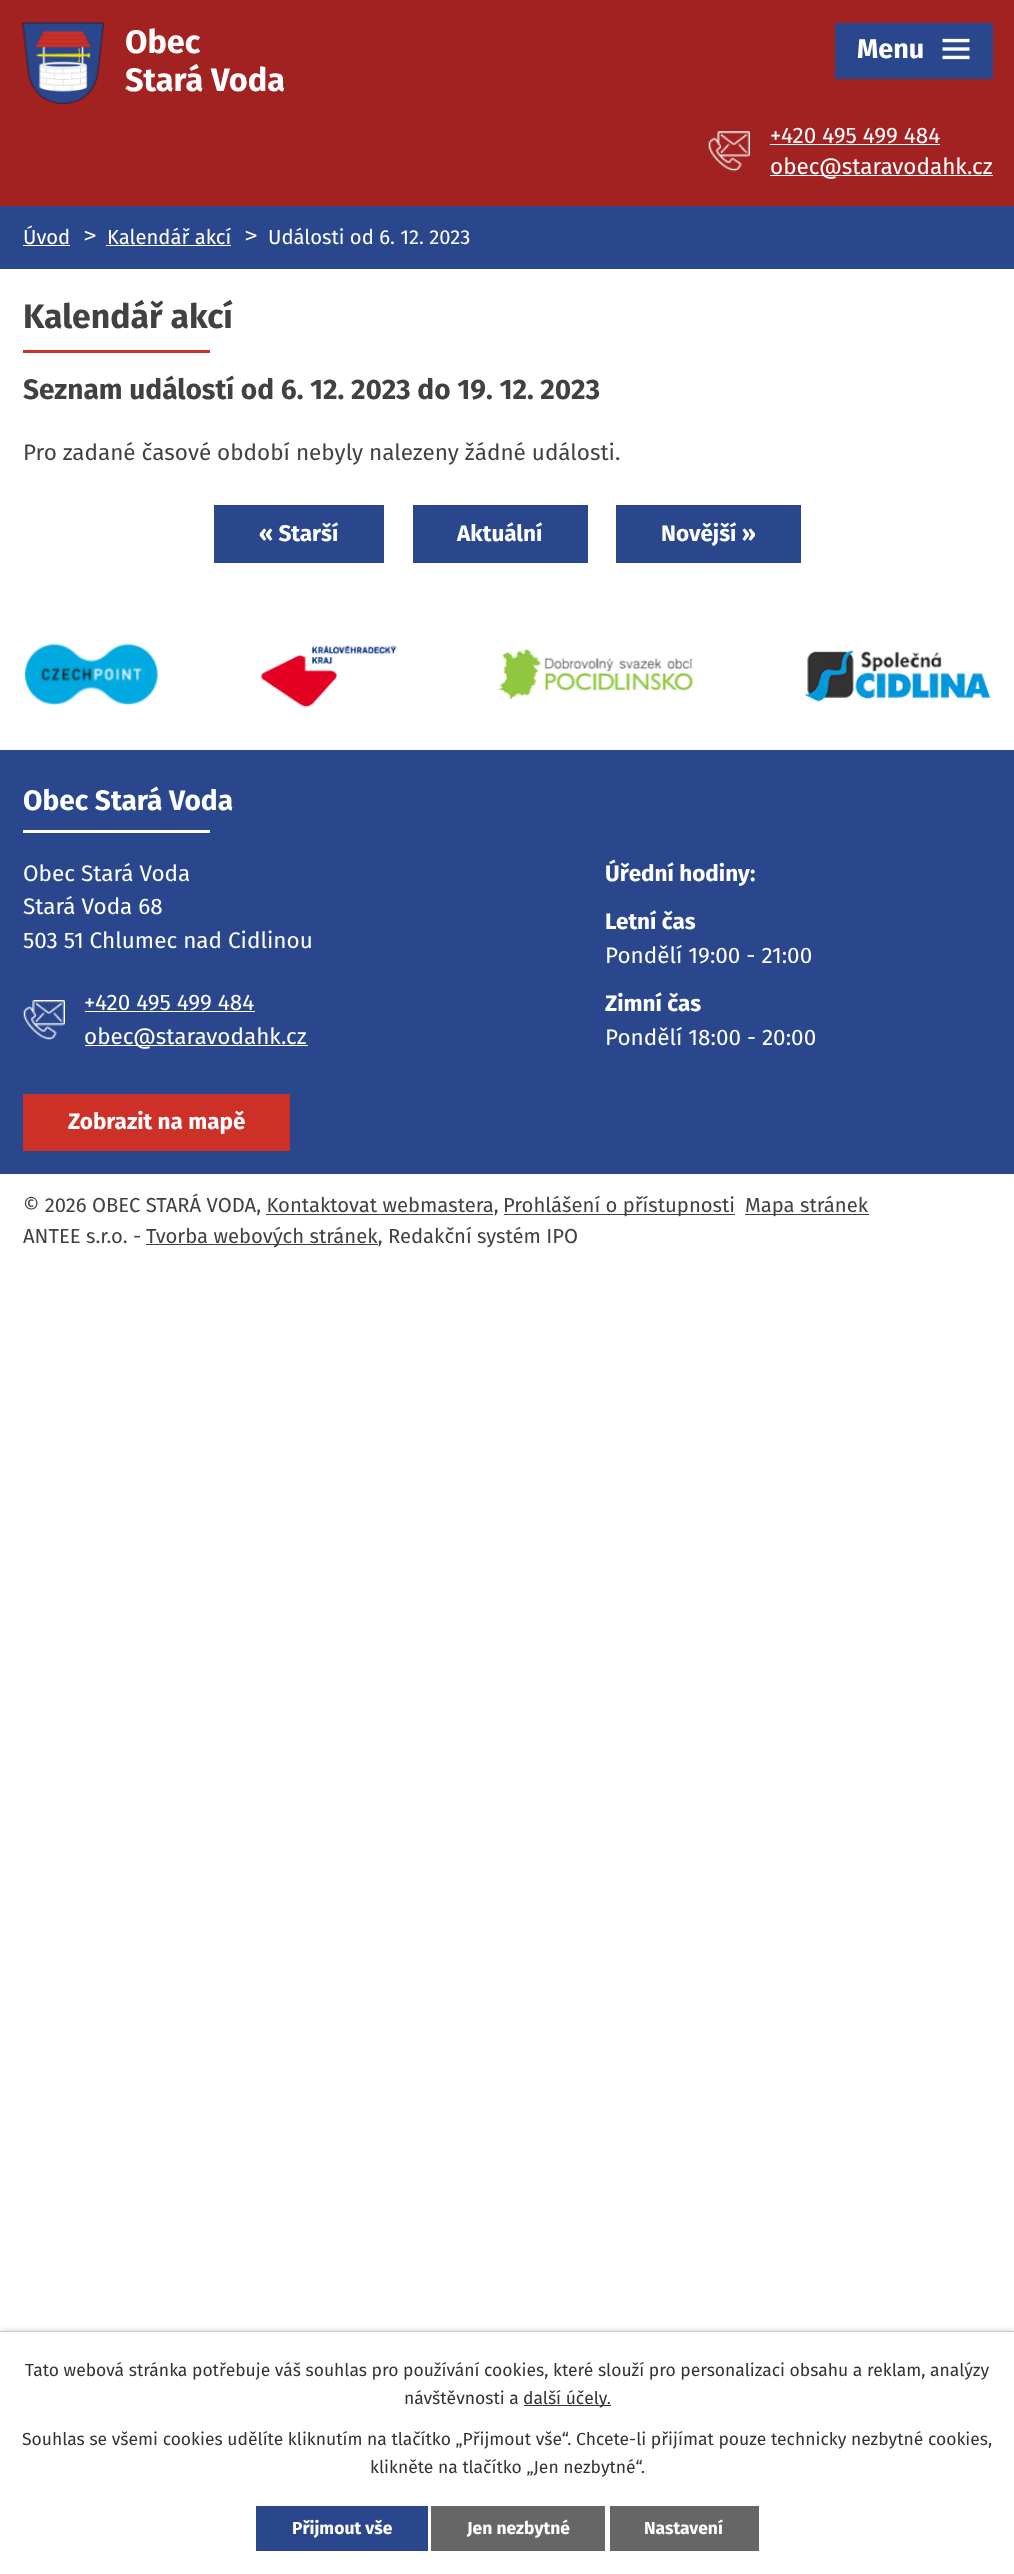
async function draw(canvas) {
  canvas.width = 1014
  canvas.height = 2574
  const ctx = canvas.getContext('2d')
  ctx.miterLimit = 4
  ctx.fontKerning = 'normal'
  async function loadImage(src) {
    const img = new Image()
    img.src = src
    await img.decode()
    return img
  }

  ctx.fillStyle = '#fff'
  ctx.fillRect(0, 0, 1014, 2574)
  ctx.fillStyle = '#a22222'
  ctx.fillRect(0, 0, 1014, 206)
  ctx.drawImage(await loadImage('image0.png'), 22, 22, 82, 82)
  ctx.font = 'bold 32.5px Fira Sans'
  ctx.fillStyle = '#fff'
  ctx.fillText('Obec', 125, 53)
  ctx.fillText('Stará Voda', 125, 91)
  ctx.drawImage(await loadImage('image1.png'), 708, 131, 42, 41)
  ctx.font = '22.5px Fira Sans'
  ctx.fillText('+420 495 499 484', 770, 143)
  ctx.fillRect(770, 144, 170, 1)
  ctx.fillRect(770, 175, 223, 1)
  ctx.fillText('obec@staravodahk.cz', 770, 174)
  ctx.fillStyle = '#2a478d'
  ctx.fillRect(835, 23, 158, 56)
  ctx.font = 'bold 27px Fira Sans'
  ctx.fillStyle = '#fff'
  ctx.fillText('Menu', 857, 58)
  ctx.drawImage(await loadImage('image2.png'), 942, 38, 28, 22)
  ctx.fillStyle = '#2a478d'
  ctx.fillRect(0, 206, 1014, 63)
  ctx.font = '20.25px Fira Sans'
  ctx.fillStyle = '#fff'
  ctx.fillText('Úvod', 23, 244)
  ctx.fillRect(23, 245, 47, 1)
  ctx.font = '20.25px DejaVu Sans Mono'
  ctx.fillText('>', 84, 242)
  ctx.font = '20.25px Fira Sans'
  ctx.fillText('Kalendář akcí', 107, 244)
  ctx.fillRect(106, 245, 125, 1)
  ctx.font = '20.25px DejaVu Sans Mono'
  ctx.fillText('>', 245, 242)
  ctx.font = '20.25px Fira Sans'
  ctx.fillText('Události od 6. 12. 2023', 268, 244)
  ctx.font = 'bold 33.75px Fira Sans'
  ctx.fillStyle = '#414141'
  ctx.fillText('Kalendář akcí', 23, 328)
  ctx.fillStyle = '#cd3027'
  ctx.fillRect(23, 350, 187, 3)
  ctx.font = 'bold 28.1px Fira Sans'
  ctx.fillStyle = '#414141'
  ctx.fillText('Seznam událostí od 6. 12. 2023 do 19. 12. 2023', 23, 399)
  ctx.font = '22.5px Fira Sans'
  ctx.fillText('Pro zadané časové období nebyly nalezeny žádné události.', 23, 460)
  ctx.fillStyle = '#2a478d'
  ctx.fillRect(214, 505, 170, 58)
  ctx.font = 'bold 22.5px Fira Sans'
  ctx.fillStyle = '#fff'
  ctx.fillText('« Starší', 259, 541)
  ctx.fillStyle = '#2a478d'
  ctx.fillRect(413, 505, 175, 58)
  ctx.fillStyle = '#fff'
  ctx.fillText('Aktuální', 457, 541)
  ctx.fillStyle = '#2a478d'
  ctx.fillRect(616, 505, 185, 58)
  ctx.fillStyle = '#fff'
  ctx.fillText('Novější »', 661, 541)
  ctx.drawImage(await loadImage('image3.png'), 24, 643, 135, 63)
  ctx.drawImage(await loadImage('image4.png'), 260, 645, 137, 62)
  ctx.drawImage(await loadImage('image5.png'), 498, 649, 196, 51)
  ctx.drawImage(await loadImage('image6.png'), 804, 650, 187, 52)
  ctx.fillStyle = '#2a478d'
  ctx.fillRect(0, 750, 1014, 424)
  ctx.font = 'bold 28.1px Fira Sans'
  ctx.fillStyle = '#fff'
  ctx.fillText('Obec Stará Voda', 23, 810)
  ctx.fillRect(23, 830, 187, 3)
  ctx.font = '22.5px Fira Sans'
  ctx.fillText('Obec Stará Voda', 23, 881)
  ctx.fillText('Stará Voda 68', 23, 914)
  ctx.fillText('503 51 Chlumec nad Cidlinou', 23, 948)
  ctx.drawImage(await loadImage('image7.png'), 23, 1000, 42, 40)
  ctx.fillText('+420 495 499 484', 84, 1010)
  ctx.fillRect(85, 1011, 170, 1)
  ctx.fillRect(85, 1045, 223, 1)
  ctx.fillText('obec@staravodahk.cz', 84, 1044)
  ctx.font = 'bold 22.5px Fira Sans'
  ctx.fillText('Úřední hodiny:', 605, 881)
  ctx.fillText('Letní čas', 605, 929)
  ctx.font = '22.5px Fira Sans'
  ctx.fillText('Pondělí 19:00 - 21:00', 605, 963)
  ctx.font = 'bold 22.5px Fira Sans'
  ctx.fillText('Zimní čas', 605, 1011)
  ctx.font = '22.5px Fira Sans'
  ctx.fillText('Pondělí 18:00 - 20:00', 605, 1045)
  ctx.fillStyle = '#cd3027'
  ctx.fillRect(23, 1094, 267, 57)
  ctx.font = 'bold 22.5px Fira Sans'
  ctx.fillStyle = '#fff'
  ctx.fillText('Zobrazit na mapě', 68, 1129)
  ctx.font = '20.25px Fira Sans'
  ctx.fillStyle = '#414141'
  ctx.fillText('© 2026 OBEC STARÁ VODA, Kontaktovat webmastera,', 23, 1212)
  ctx.fillRect(504, 1214, 231, 1)
  ctx.fillText('Prohlášení o přístupnosti', 503, 1212)
  ctx.fillRect(745, 1214, 124, 1)
  ctx.fillText('Mapa stránek', 745, 1212)
  ctx.fillRect(266, 1214, 227, 1)
  ctx.fillText('ANTEE s.r.o. -', 23, 1243)
  ctx.fillRect(146, 1244, 232, 1)
  ctx.fillText('Tvorba webových stránek, Redakční systém IPO', 146, 1243)
  ctx.fillStyle = '#00000033'
  ctx.filter = 'blur(3px)'
  ctx.beginPath()
  ctx.rect(0, 2331, 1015, 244)
  ctx.fill()
  ctx.filter = 'none'
  ctx.fillStyle = '#fff'
  ctx.fillRect(0, 2332, 1014, 242)
  ctx.fillStyle = '#ccc'
  ctx.fillRect(0, 2331, 1014, 1)
  ctx.font = '17.5px Fira Sans'
  ctx.fillStyle = '#333'
  ctx.fillText('Tato webová stránka potřebuje váš souhlas pro používání cookies, které slouží pro personalizaci obsahu a reklam, analýzy', 25, 2376)
  ctx.fillText('návštěvnosti a', 404, 2404)
  ctx.fillRect(524, 2405, 87, 1)
  ctx.fillText('další účely.', 523, 2404)
  ctx.fillText('Souhlas se všemi cookies udělíte kliknutím na tlačítko „Přijmout vše“. Chcete-li přijímat pouze technicky nezbytné cookies,', 22, 2445)
  ctx.fillText('klikněte na tlačítko „Jen nezbytné“.', 370, 2473)
  ctx.fillStyle = '#2a478d'
  ctx.fillRect(256, 2506, 172, 45)
  ctx.font = 'bold 17.5px Fira Sans'
  ctx.fillStyle = '#fff'
  ctx.fillText('Přijmout vše', 292, 2534)
  ctx.fillStyle = '#666'
  ctx.fillRect(431, 2506, 174, 45)
  ctx.fillStyle = '#fff'
  ctx.fillText('Jen nezbytné', 467, 2534)
  ctx.fillStyle = '#666'
  ctx.fillRect(610, 2506, 149, 45)
  ctx.fillStyle = '#fff'
  ctx.fillText('Nastavení', 644, 2534)
}

draw(document.querySelector('canvas'))
